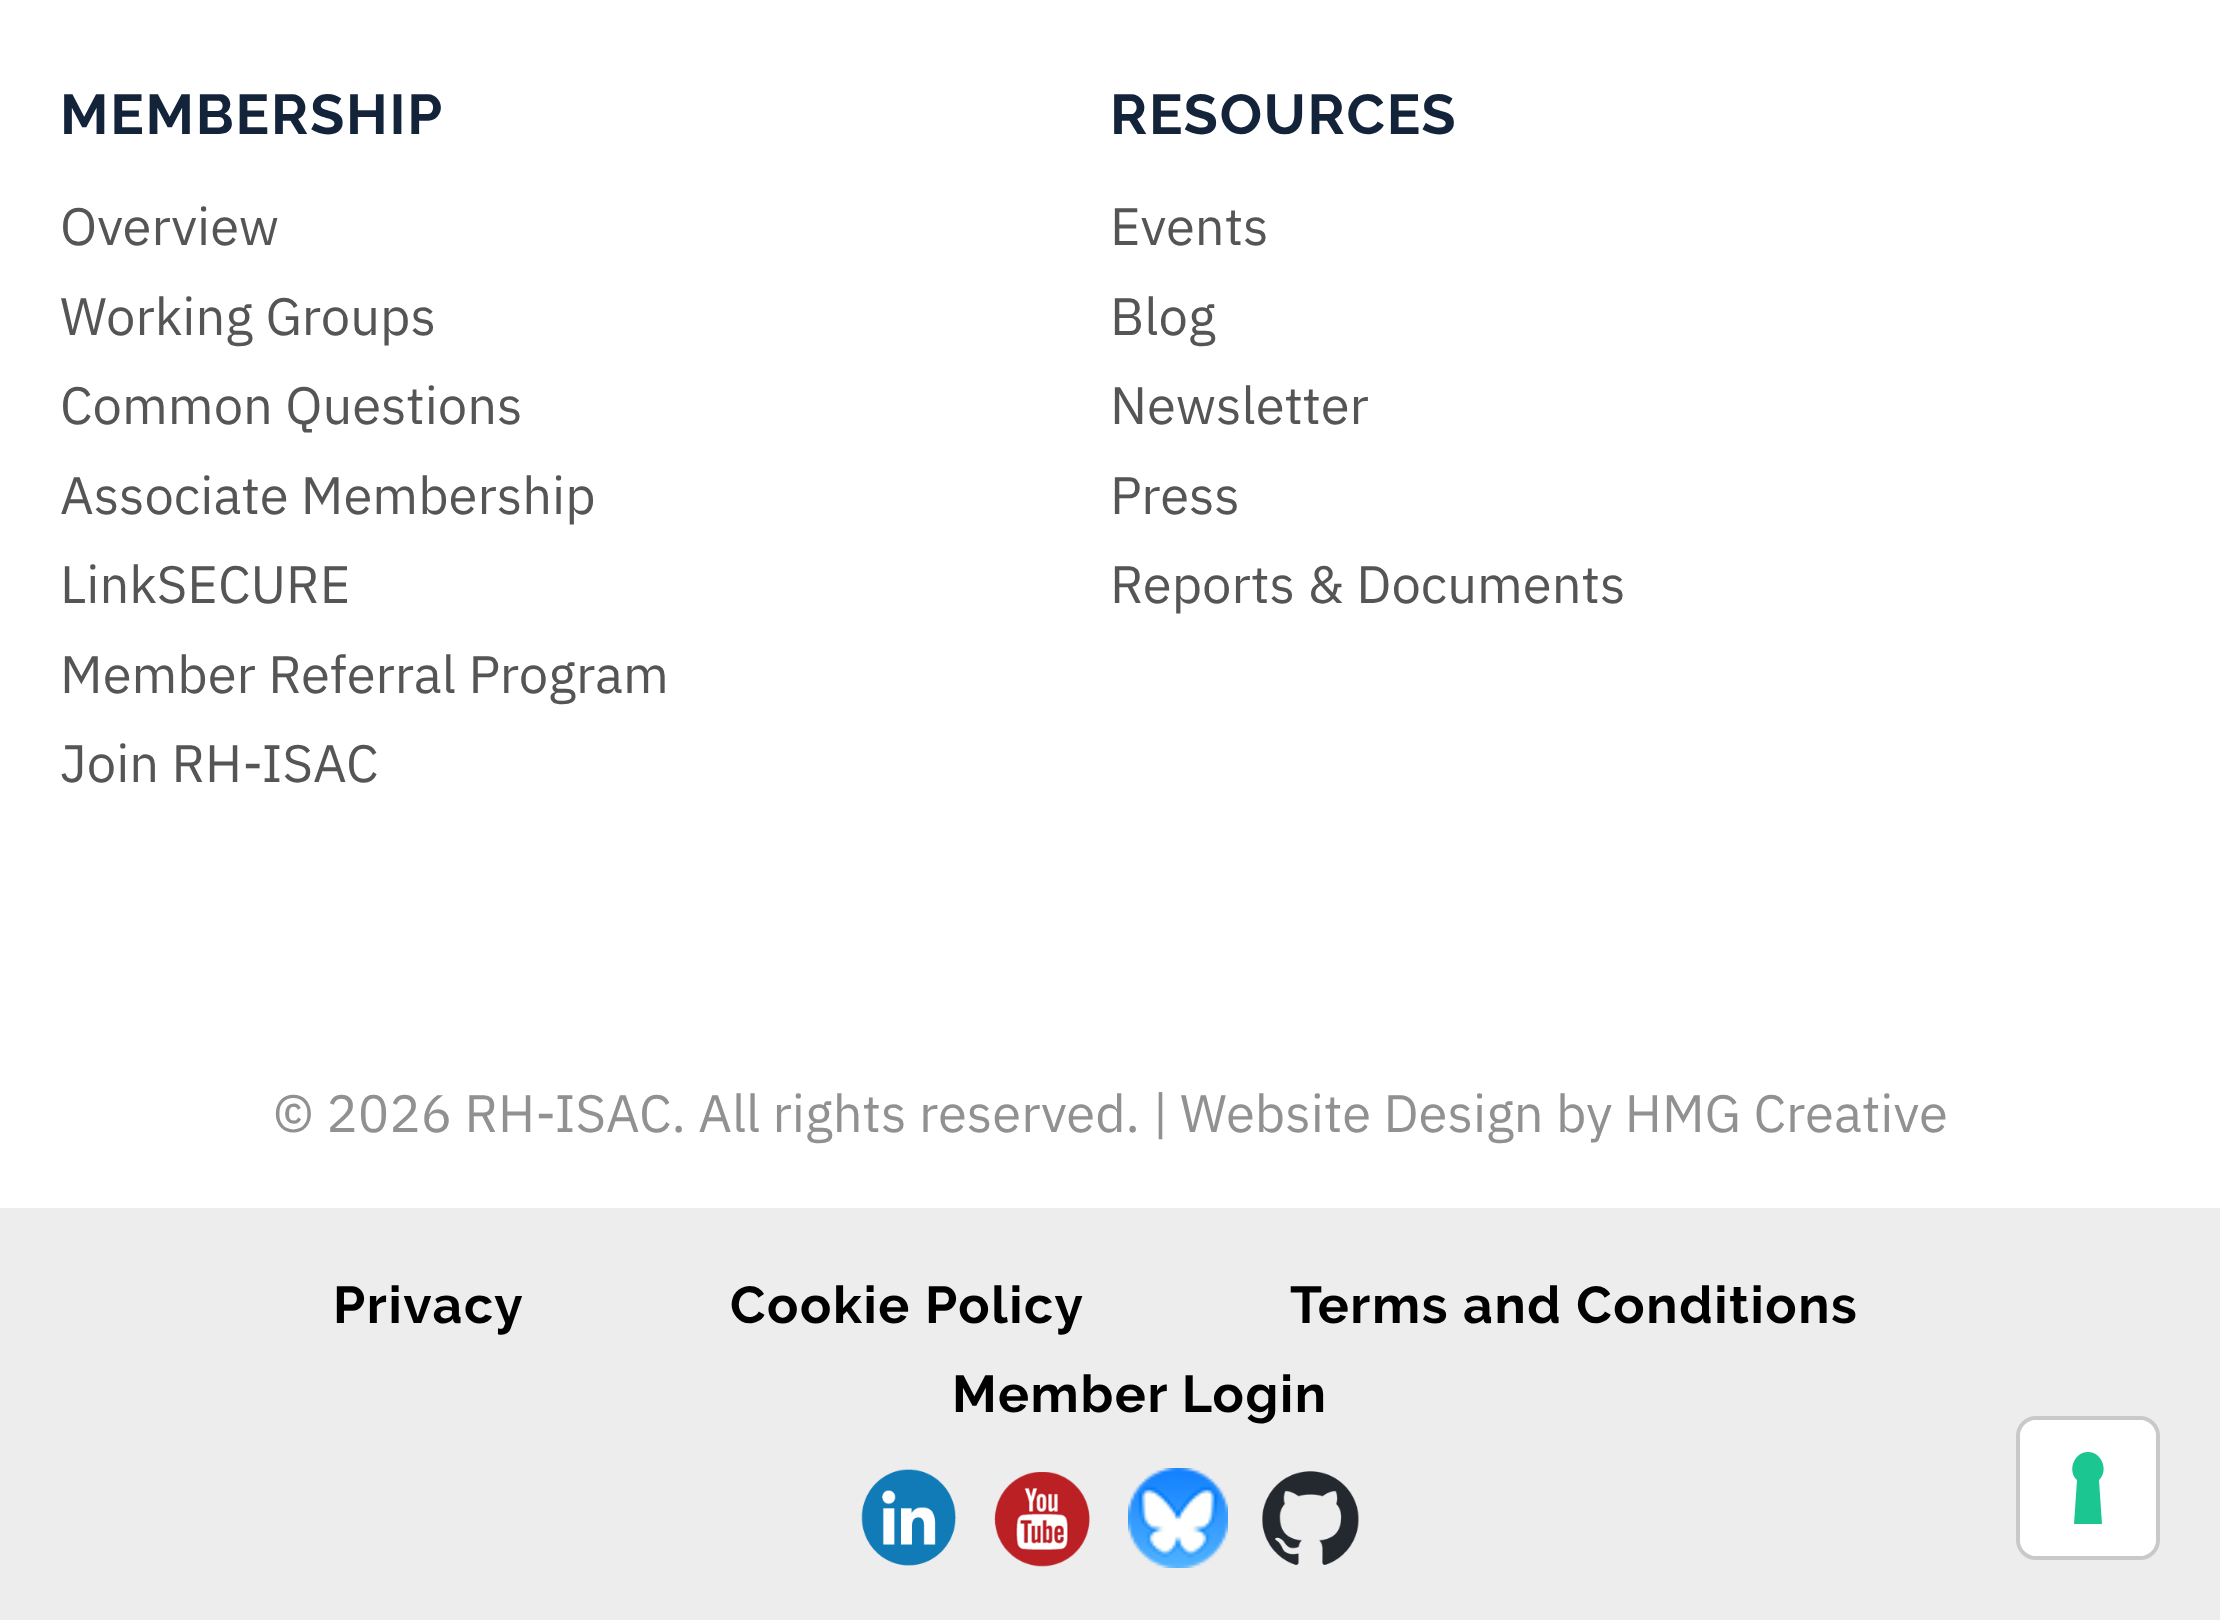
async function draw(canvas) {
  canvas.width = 2220
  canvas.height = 1620
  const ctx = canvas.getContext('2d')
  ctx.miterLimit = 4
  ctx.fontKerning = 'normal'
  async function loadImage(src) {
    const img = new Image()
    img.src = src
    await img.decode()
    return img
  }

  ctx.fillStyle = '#fff'
  ctx.fillRect(0, 0, 2220, 1620)
  ctx.letterSpacing = '1.75px'
  ctx.font = 'bold 56px Raleway'
  ctx.fillStyle = '#132339'
  ctx.fillText('MEMBERSHIP', 60, 134)
  ctx.letterSpacing = '0px'
  ctx.font = '52.5px IBM Plex Sans'
  ctx.fillStyle = '#555'
  ctx.fillText('Overview', 60, 245)
  ctx.fillText('Working Groups', 60, 335)
  ctx.fillText('Common Questions', 60, 424)
  ctx.fillText('Associate Membership', 60, 514)
  ctx.fillText('LinkSECURE', 60, 603)
  ctx.fillText('Member Referral Program', 60, 693)
  ctx.fillText('Join RH-ISAC', 60, 782)
  ctx.letterSpacing = '1.75px'
  ctx.font = 'bold 56px Raleway'
  ctx.fillStyle = '#132339'
  ctx.fillText('RESOURCES', 1110, 134)
  ctx.letterSpacing = '0px'
  ctx.font = '52.5px IBM Plex Sans'
  ctx.fillStyle = '#555'
  ctx.fillText('Events', 1110, 245)
  ctx.fillText('Blog', 1110, 335)
  ctx.fillText('Newsletter', 1110, 424)
  ctx.fillText('Press', 1110, 514)
  ctx.fillText('Reports & Documents', 1110, 603)
  ctx.fillStyle = '#919191'
  ctx.fillText('© 2026 RH-ISAC. All rights reserved. |', 273, 1132)
  ctx.fillText('Website Design by HMG Creative', 1180, 1132)
  ctx.fillStyle = '#ededed'
  ctx.fillRect(0, 1208, 2220, 412)
  ctx.letterSpacing = '1.6px'
  ctx.font = 'bold 51.75px Raleway'
  ctx.fillStyle = '#000'
  ctx.fillText('Privacy', 333, 1323)
  ctx.fillText('Cookie Policy', 730, 1323)
  ctx.fillText('Terms and Conditions', 1290, 1323)
  ctx.fillText('Member Login', 952, 1412)
  ctx.drawImage(await loadImage('image0.png'), 861, 1469, 95, 97)
  ctx.drawImage(await loadImage('image1.png'), 994, 1472, 96, 95)
  ctx.drawImage(await loadImage('image2.png'), 1128, 1468, 100, 100)
  ctx.drawImage(await loadImage('image3.png'), 1262, 1471, 97, 94)
  ctx.beginPath()
  ctx.roundRect(2018, 1418, 140, 140, 18)
  ctx.strokeStyle = '#c9c9c9'
  ctx.lineWidth = 4
  ctx.stroke()
  ctx.fillStyle = '#fff'
  ctx.beginPath()
  ctx.roundRect(2020, 1420, 136, 136, 16)
  ctx.fill()
  ctx.fillStyle = '#1cc691'
  ctx.beginPath()
  ctx.moveTo(2088, 1452)
  ctx.bezierCurveTo(2102, 1452, 2109, 1471, 2099, 1480)
  ctx.lineTo(2102, 1524)
  ctx.lineTo(2074, 1524)
  ctx.lineTo(2077, 1480)
  ctx.bezierCurveTo(2067, 1471, 2074, 1452, 2088, 1452)
  ctx.closePath()
  ctx.fill('evenodd')
}

draw(document.querySelector('canvas'))
